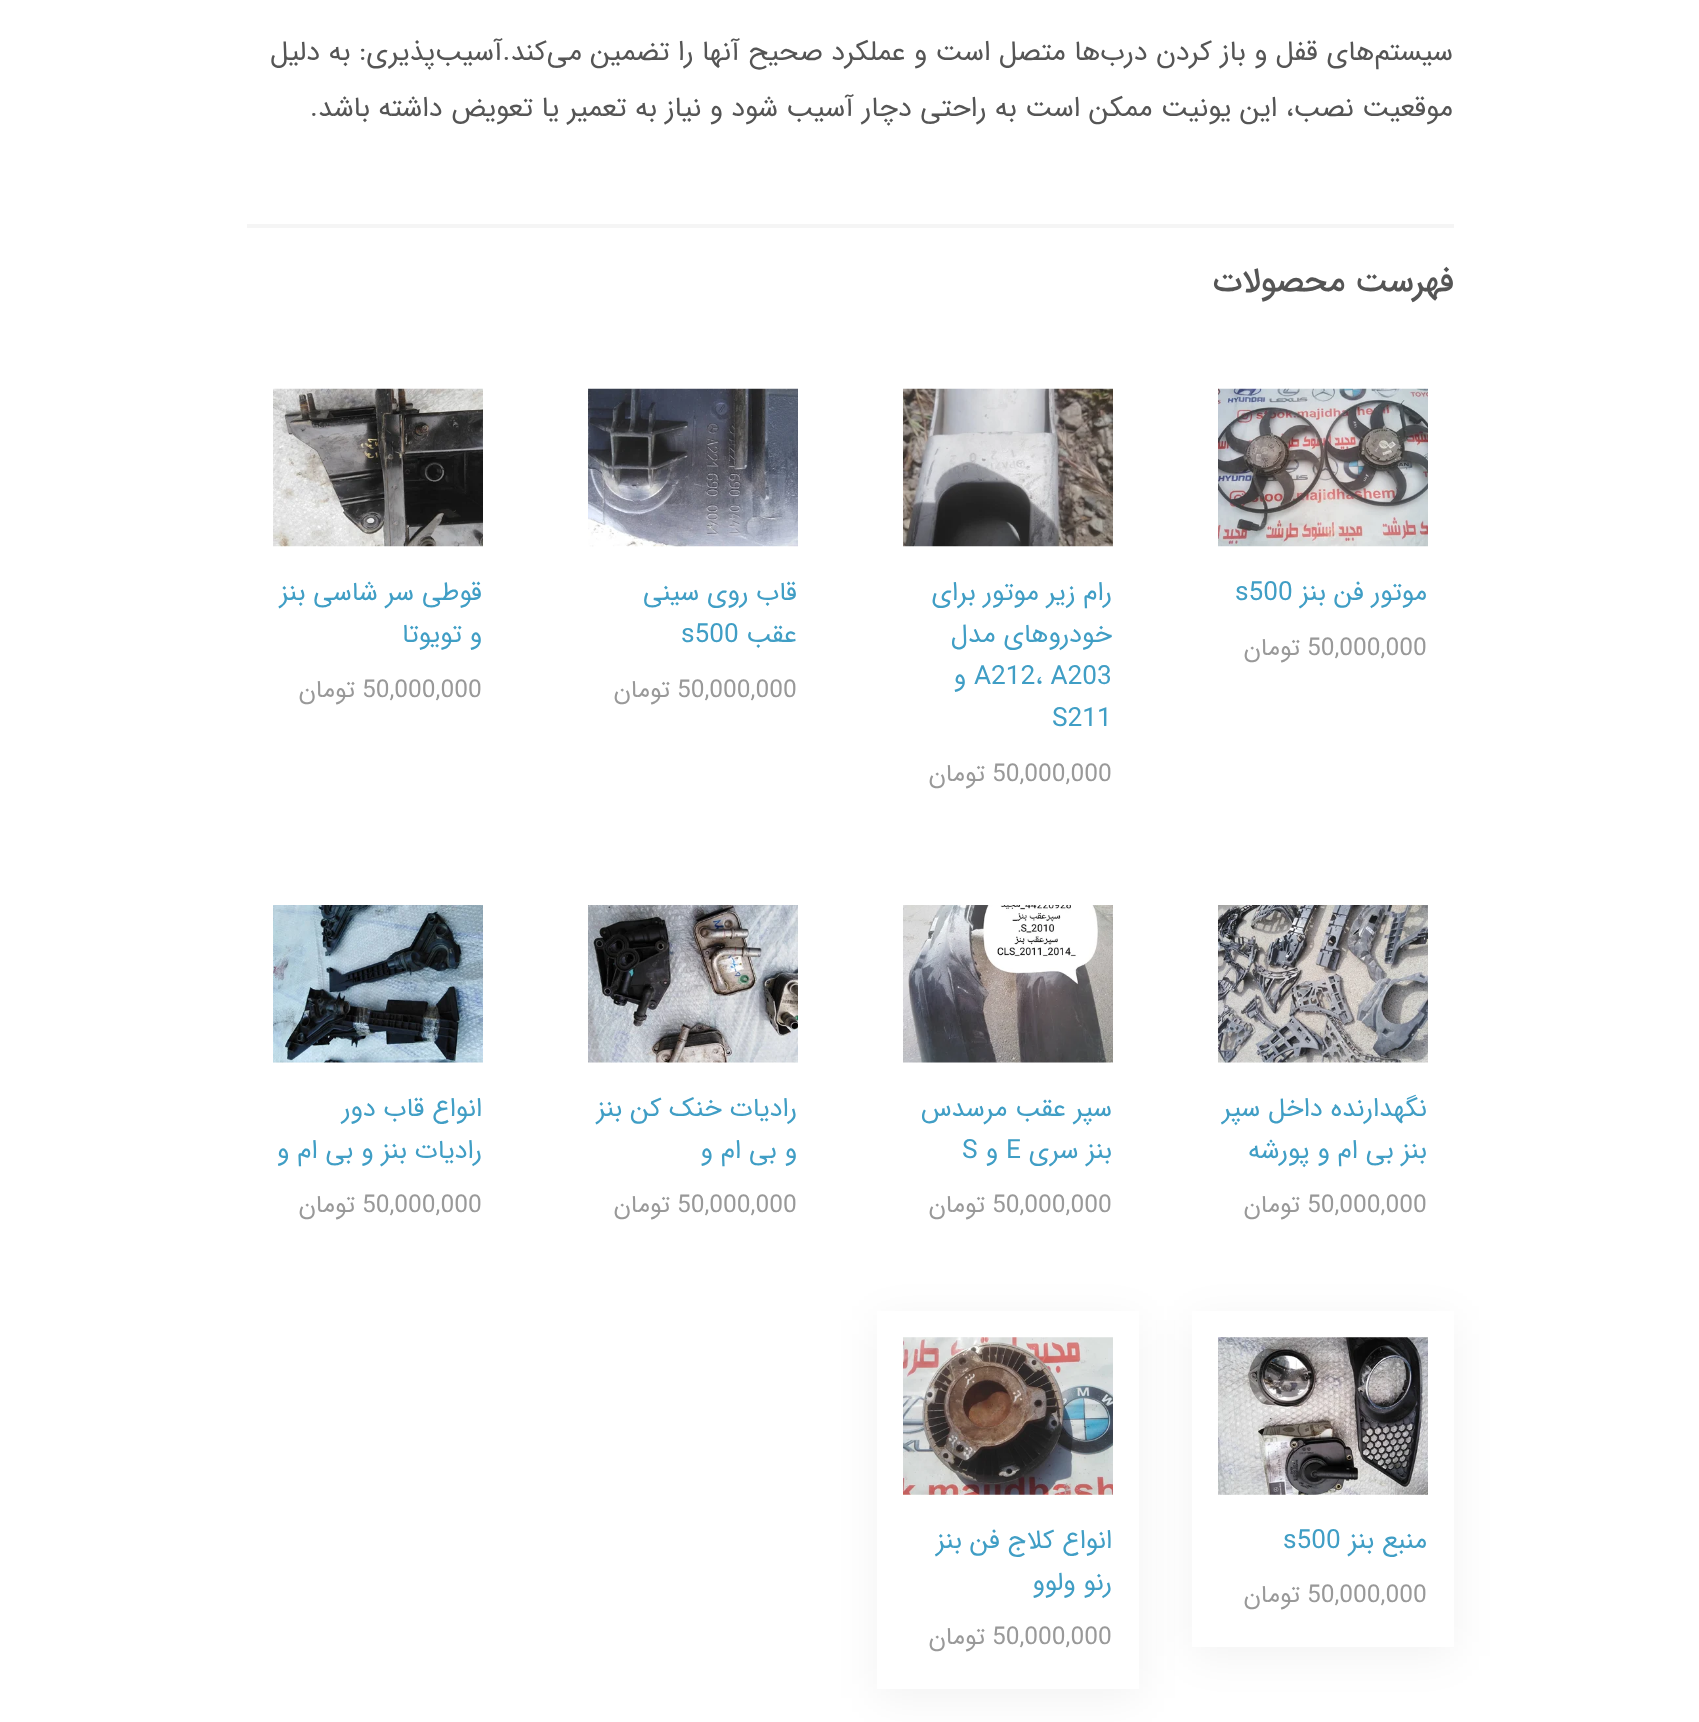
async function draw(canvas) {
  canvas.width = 1699
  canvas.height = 1722
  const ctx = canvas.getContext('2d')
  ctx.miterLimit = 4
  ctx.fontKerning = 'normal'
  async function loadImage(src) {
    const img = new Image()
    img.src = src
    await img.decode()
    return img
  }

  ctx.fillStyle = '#fff'
  ctx.fillRect(0, 0, 1699, 1722)
  ctx.direction = 'rtl'
  ctx.font = '28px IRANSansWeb'
  ctx.fillStyle = '#555'
  ctx.fillText('سیستم‌های قفل و باز کردن درب‌ها متصل است و عملکرد صحیح آنها را تضمین می‌کند.آسیب‌پذیری: به دلیل', 1453, 60)
  ctx.fillText('موقعیت نصب، این یونیت ممکن است به راحتی دچار آسیب شود و نیاز به تعمیر یا تعویض داشته باشد.', 1453, 116)
  ctx.fillStyle = '#f5f5f5'
  ctx.fillRect(247, 224, 1207, 4)
  ctx.font = '500 33.5px IRANSansWeb'
  ctx.fillStyle = '#555'
  ctx.fillText('فهرست محصولات', 1454, 291)
  ctx.drawImage(await loadImage('image0.png'), 1218, 388, 210, 159)
  ctx.font = '26.25px IRANSansWeb'
  ctx.fillStyle = '#409ec5'
  ctx.fillText('موتور فن بنز', 1427, 600)
  ctx.direction = 'ltr'
  ctx.fillText('s500', 1235, 600)
  ctx.font = '24.5px IRANSansWeb'
  ctx.fillStyle = '#999'
  ctx.fillText('50,000,000', 1307, 655)
  ctx.direction = 'rtl'
  ctx.fillText('تومان', 1300, 655)
  ctx.drawImage(await loadImage('image1.png'), 903, 388, 210, 159)
  ctx.font = '26.25px IRANSansWeb'
  ctx.fillStyle = '#409ec5'
  ctx.fillText('رام زیر موتور برای', 1112, 600)
  ctx.fillText('خودروهای مدل', 1112, 642)
  ctx.direction = 'ltr'
  ctx.fillText('A212، A203', 974, 684)
  ctx.direction = 'rtl'
  ctx.fillText('و', 966, 684)
  ctx.direction = 'ltr'
  ctx.fillText('S211', 1052, 726)
  ctx.font = '24.5px IRANSansWeb'
  ctx.fillStyle = '#999'
  ctx.fillText('50,000,000', 992, 781)
  ctx.direction = 'rtl'
  ctx.fillText('تومان', 985, 781)
  ctx.drawImage(await loadImage('image2.png'), 588, 388, 210, 159)
  ctx.font = '26.25px IRANSansWeb'
  ctx.fillStyle = '#409ec5'
  ctx.fillText('قاب روی سینی', 797, 600)
  ctx.fillText('عقب', 797, 642)
  ctx.direction = 'ltr'
  ctx.fillText('s500', 681, 642)
  ctx.font = '24.5px IRANSansWeb'
  ctx.fillStyle = '#999'
  ctx.fillText('50,000,000', 677, 697)
  ctx.direction = 'rtl'
  ctx.fillText('تومان', 670, 697)
  ctx.drawImage(await loadImage('image3.png'), 273, 388, 210, 159)
  ctx.font = '26.25px IRANSansWeb'
  ctx.fillStyle = '#409ec5'
  ctx.fillText('قوطی سر شاسی بنز', 482, 600)
  ctx.fillText('و تویوتا', 482, 642)
  ctx.direction = 'ltr'
  ctx.font = '24.5px IRANSansWeb'
  ctx.fillStyle = '#999'
  ctx.fillText('50,000,000', 362, 697)
  ctx.direction = 'rtl'
  ctx.fillText('تومان', 355, 697)
  ctx.drawImage(await loadImage('image4.png'), 1218, 905, 210, 158)
  ctx.font = '26.25px IRANSansWeb'
  ctx.fillStyle = '#409ec5'
  ctx.fillText('نگهدارنده داخل سپر', 1427, 1116)
  ctx.fillText('بنز بی ام و پورشه', 1427, 1158)
  ctx.direction = 'ltr'
  ctx.font = '24.5px IRANSansWeb'
  ctx.fillStyle = '#999'
  ctx.fillText('50,000,000', 1307, 1212)
  ctx.direction = 'rtl'
  ctx.fillText('تومان', 1300, 1212)
  ctx.drawImage(await loadImage('image5.png'), 903, 905, 210, 158)
  ctx.font = '26.25px IRANSansWeb'
  ctx.fillStyle = '#409ec5'
  ctx.fillText('سپر عقب مرسدس', 1112, 1116)
  ctx.fillText('بنز سری', 1112, 1158)
  ctx.direction = 'ltr'
  ctx.fillText('E', 1006, 1158)
  ctx.direction = 'rtl'
  ctx.fillText('و', 998, 1158)
  ctx.direction = 'ltr'
  ctx.fillText('S', 962, 1158)
  ctx.font = '24.5px IRANSansWeb'
  ctx.fillStyle = '#999'
  ctx.fillText('50,000,000', 992, 1212)
  ctx.direction = 'rtl'
  ctx.fillText('تومان', 985, 1212)
  ctx.drawImage(await loadImage('image6.png'), 588, 905, 210, 158)
  ctx.font = '26.25px IRANSansWeb'
  ctx.fillStyle = '#409ec5'
  ctx.fillText('رادیات خنک کن بنز', 797, 1116)
  ctx.fillText('و بی ام و', 797, 1158)
  ctx.direction = 'ltr'
  ctx.font = '24.5px IRANSansWeb'
  ctx.fillStyle = '#999'
  ctx.fillText('50,000,000', 677, 1212)
  ctx.direction = 'rtl'
  ctx.fillText('تومان', 670, 1212)
  ctx.drawImage(await loadImage('image7.png'), 273, 905, 210, 158)
  ctx.font = '26.25px IRANSansWeb'
  ctx.fillStyle = '#409ec5'
  ctx.fillText('انواع قاب دور', 482, 1116)
  ctx.fillText('رادیات بنز و بی ام و', 482, 1158)
  ctx.direction = 'ltr'
  ctx.font = '24.5px IRANSansWeb'
  ctx.fillStyle = '#999'
  ctx.fillText('50,000,000', 362, 1212)
  ctx.direction = 'rtl'
  ctx.fillText('تومان', 355, 1212)
  ctx.fillStyle = '#0000000d'
  ctx.filter = 'blur(22px)'
  ctx.beginPath()
  ctx.rect(1192, 1320, 262, 336)
  ctx.fill()
  ctx.filter = 'none'
  ctx.fillStyle = '#fff'
  ctx.fillRect(1192, 1311, 262, 336)
  ctx.drawImage(await loadImage('image8.png'), 1218, 1337, 210, 158)
  ctx.font = '26.25px IRANSansWeb'
  ctx.fillStyle = '#409ec5'
  ctx.fillText('منبع بنز', 1427, 1548)
  ctx.direction = 'ltr'
  ctx.fillText('s500', 1283, 1548)
  ctx.font = '24.5px IRANSansWeb'
  ctx.fillStyle = '#999'
  ctx.fillText('50,000,000', 1307, 1602)
  ctx.direction = 'rtl'
  ctx.fillText('تومان', 1300, 1602)
  ctx.fillStyle = '#0000000d'
  ctx.filter = 'blur(22px)'
  ctx.beginPath()
  ctx.rect(877, 1320, 262, 378)
  ctx.fill()
  ctx.filter = 'none'
  ctx.fillStyle = '#fff'
  ctx.fillRect(877, 1311, 262, 378)
  ctx.drawImage(await loadImage('image9.png'), 903, 1337, 210, 158)
  ctx.font = '26.25px IRANSansWeb'
  ctx.fillStyle = '#409ec5'
  ctx.fillText('انواع کلاج فن بنز', 1112, 1548)
  ctx.fillText('رنو ولوو', 1112, 1590)
  ctx.direction = 'ltr'
  ctx.font = '24.5px IRANSansWeb'
  ctx.fillStyle = '#999'
  ctx.fillText('50,000,000', 992, 1644)
  ctx.direction = 'rtl'
  ctx.fillText('تومان', 985, 1644)
}

draw(document.querySelector('canvas'))
